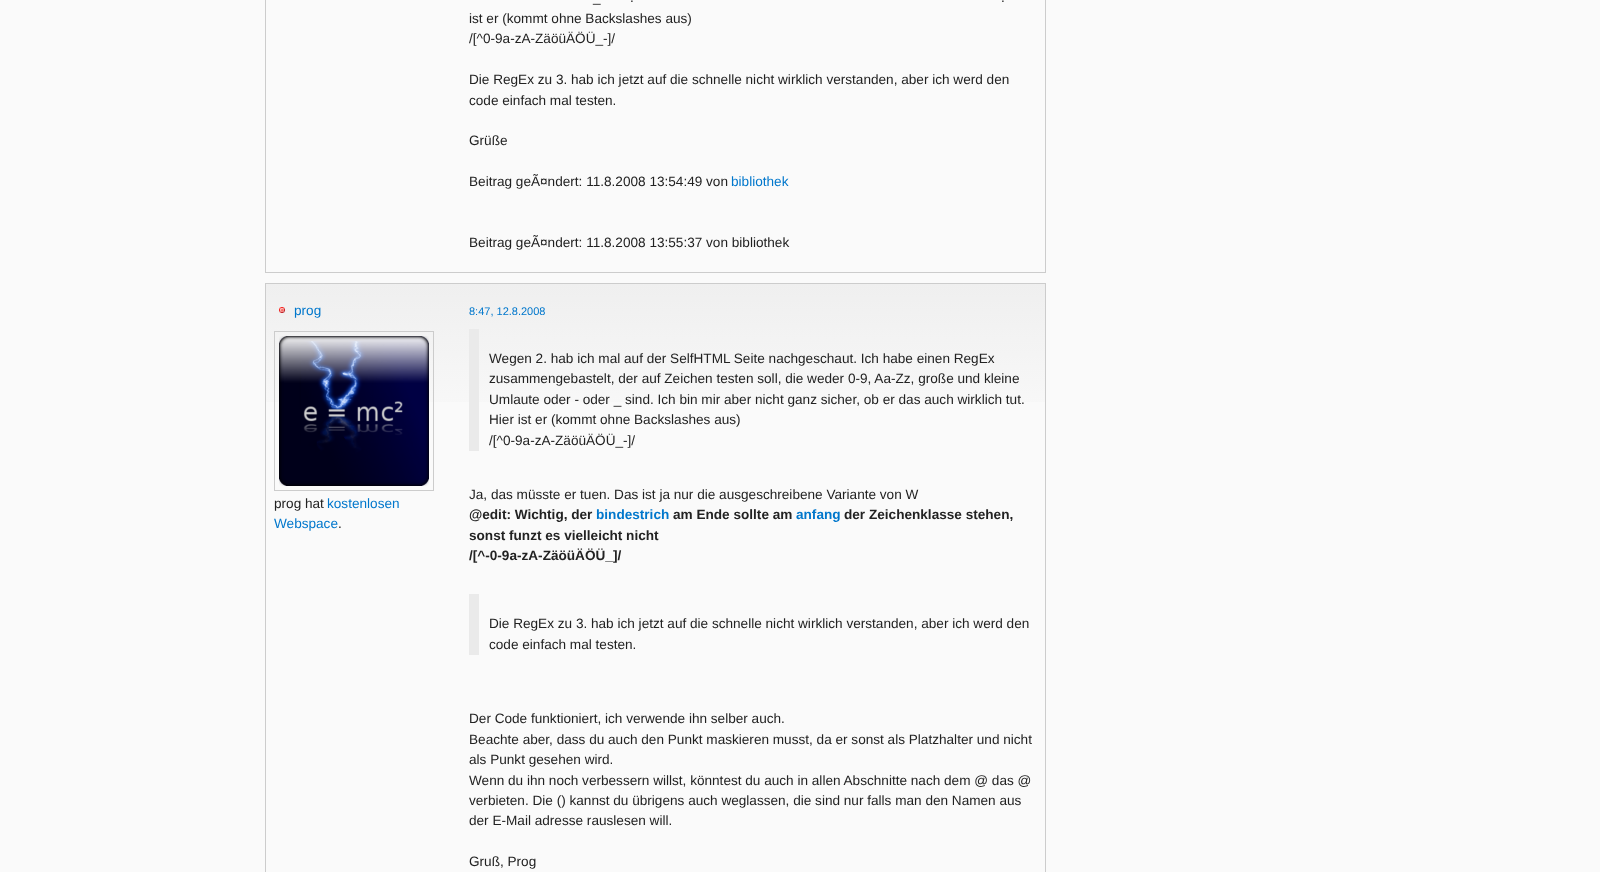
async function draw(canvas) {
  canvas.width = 1600
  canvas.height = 872
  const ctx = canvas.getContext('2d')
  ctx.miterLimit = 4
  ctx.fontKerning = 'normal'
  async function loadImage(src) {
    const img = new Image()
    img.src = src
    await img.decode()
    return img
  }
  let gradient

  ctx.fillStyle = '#fafafa'
  ctx.fillRect(0, 0, 1600, 872)
  ctx.strokeStyle = '#ccc'
  ctx.strokeRect(265.5, -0.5, 780, 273)
  ctx.font = '13.6px Liberation Sans'
  ctx.fillStyle = '#222'
  ctx.fillText('.', 630, 2)
  ctx.fillText('.', 1001, 2)
  ctx.fillText('_', 593, 2)
  ctx.fillText('ist er (kommt ohne Backslashes aus)', 469, 23)
  ctx.fillText('/[^0-9a-zA-ZäöüÄÖÜ_-]/', 469, 43)
  ctx.fillText('Die RegEx zu 3. hab ich jetzt auf die schnelle nicht wirklich verstanden, aber ich werd den', 469, 84)
  ctx.fillText('code einfach mal testen.', 469, 105)
  ctx.fillText('Grüße', 469, 145)
  ctx.fillText('Beitrag geÃ¤ndert: 11.8.2008 13:54:49 von', 469, 186)
  ctx.fillStyle = '#07c'
  ctx.fillText('bibliothek', 731, 186)
  ctx.fillStyle = '#222'
  ctx.fillText('Beitrag geÃ¤ndert: 11.8.2008 13:55:37 von bibliothek', 469, 247)
  gradient = ctx.createLinearGradient(656, 284, 656, 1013)
  gradient.addColorStop(0, '#efefef')
  gradient.addColorStop(0.21, '#fafafa')
  ctx.fillStyle = gradient
  ctx.fillRect(266, 284, 779, 118)
  ctx.strokeRect(265.5, 283.5, 780, 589)
  ctx.drawImage(await loadImage('image0.png'), 279, 307, 6, 6)
  ctx.fillStyle = '#07c'
  ctx.fillText('prog', 294, 315)
  ctx.strokeRect(274.5, 331.5, 159, 159)
  ctx.drawImage(await loadImage('image1.png'), 279, 336, 150, 150)
  ctx.fillStyle = '#222'
  ctx.fillText('prog hat', 274, 508)
  ctx.fillStyle = '#07c'
  ctx.fillText('kostenlosen', 327, 508)
  ctx.fillText('Webspace', 274, 528)
  ctx.fillStyle = '#222'
  ctx.fillText('.', 338, 528)
  ctx.font = '11px Liberation Sans'
  ctx.fillStyle = '#07c'
  ctx.fillText('8:47, 12.8.2008', 469, 315)
  ctx.fillStyle = '#eaeaea'
  ctx.fillRect(469, 329, 10, 122)
  ctx.font = '13.6px Liberation Sans'
  ctx.fillStyle = '#222'
  ctx.fillText('Wegen 2. hab ich mal auf der SelfHTML Seite nachgeschaut. Ich habe einen RegEx', 489, 363)
  ctx.fillText('zusammengebastelt, der auf Zeichen testen soll, die weder 0-9, Aa-Zz, große und kleine', 489, 383)
  ctx.fillText('Umlaute oder - oder _ sind. Ich bin mir aber nicht ganz sicher, ob er das auch wirklich tut.', 489, 404)
  ctx.fillText('Hier ist er (kommt ohne Backslashes aus)', 489, 424)
  ctx.fillText('/[^0-9a-zA-ZäöüÄÖÜ_-]/', 489, 445)
  ctx.fillText('Ja, das müsste er tuen. Das ist ja nur die ausgeschreibene Variante von W', 469, 499)
  ctx.font = 'bold 13.6px Liberation Sans'
  ctx.fillText('@edit: Wichtig, der', 469, 519)
  ctx.fillStyle = '#07c'
  ctx.fillText('bindestrich', 596, 519)
  ctx.fillStyle = '#222'
  ctx.fillText('am Ende sollte am', 673, 519)
  ctx.fillStyle = '#07c'
  ctx.fillText('anfang', 796, 519)
  ctx.fillStyle = '#222'
  ctx.fillText('der Zeichenklasse stehen,', 844, 519)
  ctx.fillText('sonst funzt es vielleicht nicht', 469, 540)
  ctx.fillText('/[^-0-9a-zA-ZäöüÄÖÜ_]/', 469, 560)
  ctx.fillStyle = '#eaeaea'
  ctx.fillRect(469, 594, 10, 61)
  ctx.font = '13.6px Liberation Sans'
  ctx.fillStyle = '#222'
  ctx.fillText('Die RegEx zu 3. hab ich jetzt auf die schnelle nicht wirklich verstanden, aber ich werd den', 489, 628)
  ctx.fillText('code einfach mal testen.', 489, 649)
  ctx.fillText('Der Code funktioniert, ich verwende ihn selber auch.', 469, 723)
  ctx.fillText('Beachte aber, dass du auch den Punkt maskieren musst, da er sonst als Platzhalter und nicht', 469, 744)
  ctx.fillText('als Punkt gesehen wird.', 469, 764)
  ctx.fillText('Wenn du ihn noch verbessern willst, könntest du auch in allen Abschnitte nach dem @ das @', 469, 785)
  ctx.fillText('verbieten. Die () kannst du übrigens auch weglassen, die sind nur falls man den Namen aus', 469, 805)
  ctx.fillText('der E-Mail adresse rauslesen will.', 469, 825)
  ctx.fillText('Gruß, Prog', 469, 866)
}

draw(document.querySelector('canvas'))
